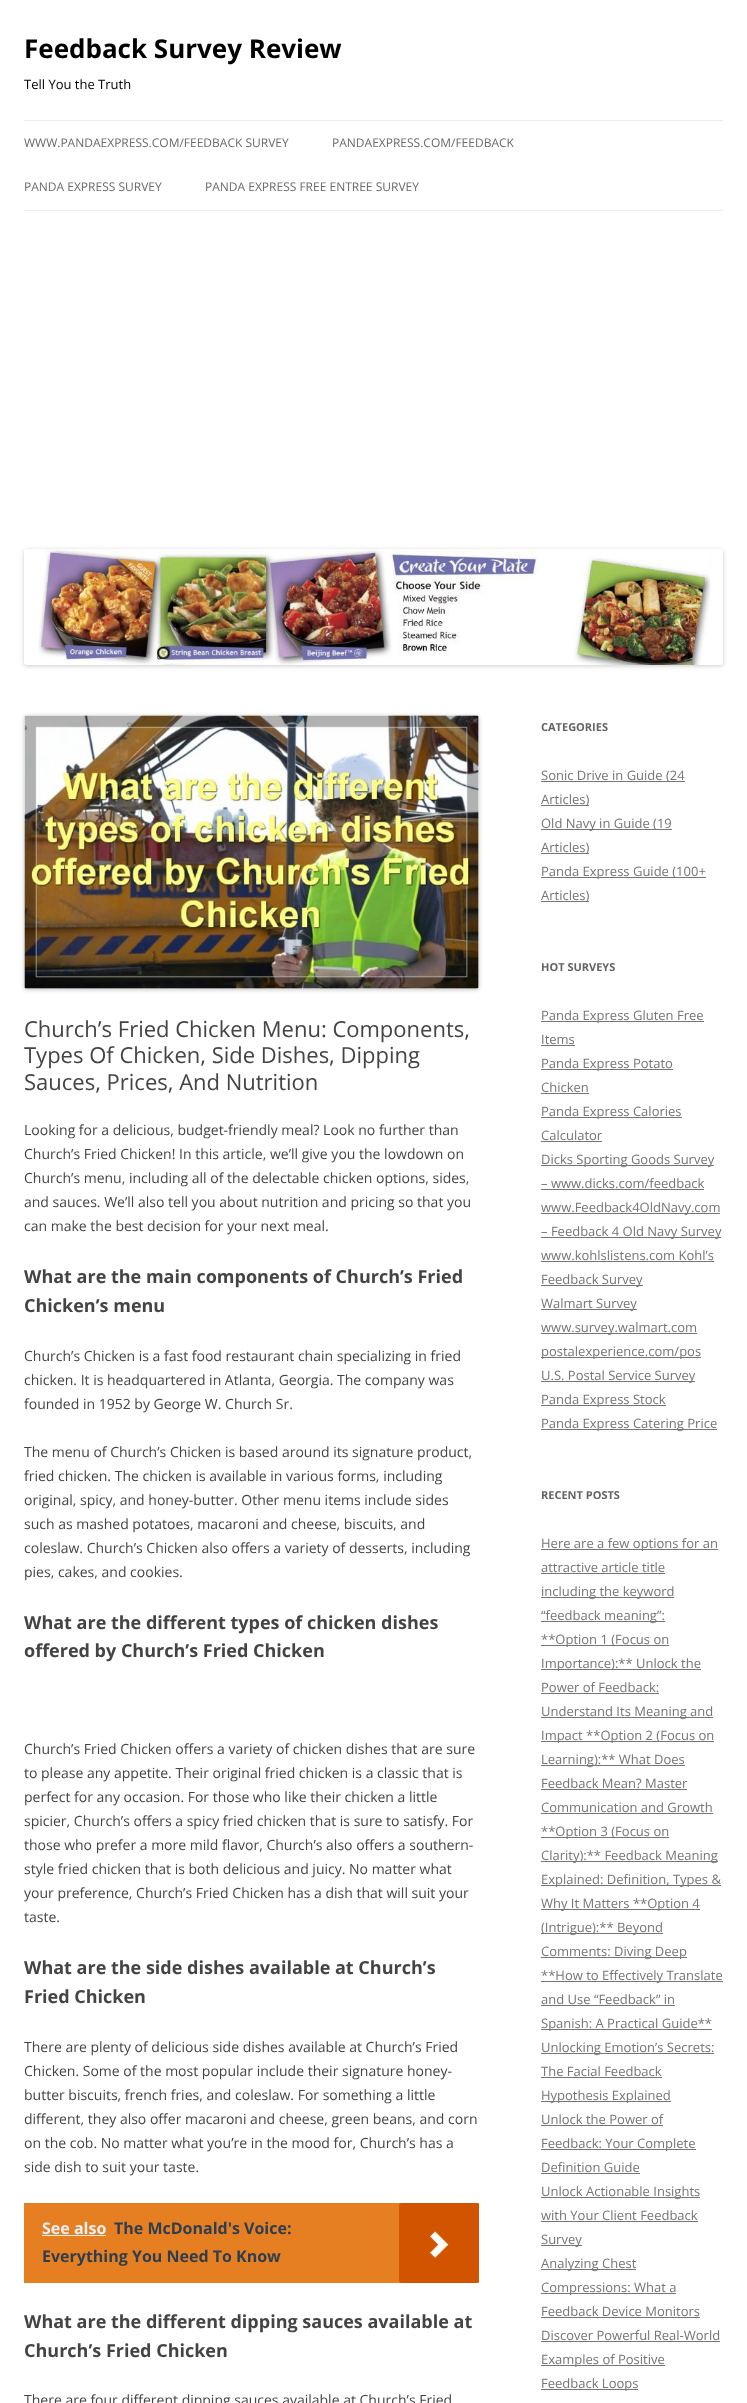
async function draw(canvas) {
  canvas.width = 747
  canvas.height = 2403
  const ctx = canvas.getContext('2d')
  ctx.miterLimit = 4
  ctx.fontKerning = 'normal'
  async function loadImage(src) {
    const img = new Image()
    img.src = src
    await img.decode()
    return img
  }

  ctx.fillStyle = '#fff'
  ctx.fillRect(0, 0, 747, 2403)
  ctx.font = 'bold 26px Open Sans'
  ctx.fillStyle = '#000'
  ctx.fillText('Feedback Survey Review', 24, 58)
  ctx.font = '13px Open Sans'
  ctx.fillText('Tell You the Truth', 24, 89)
  ctx.fillStyle = '#ededed'
  ctx.fillRect(24, 120, 699, 1)
  ctx.fillRect(24, 210, 699, 1)
  ctx.font = '12px Open Sans'
  ctx.fillStyle = '#6a6a6a'
  ctx.fillText('WWW.PANDAEXPRESS.COM/FEEDBACK SURVEY', 24, 147)
  ctx.fillText('PANDAEXPRESS.COM/FEEDBACK', 332, 147)
  ctx.fillText('PANDA EXPRESS SURVEY', 24, 191)
  ctx.fillText('PANDA EXPRESS FREE ENTREE SURVEY', 205, 191)
  ctx.fillStyle = '#00000033'
  ctx.filter = 'blur(2px)'
  ctx.beginPath()
  ctx.roundRect(24, 550, 699, 116, 3)
  ctx.fill()
  ctx.filter = 'none'
  ctx.drawImage(await loadImage('image0.png'), 24, 549, 699, 116)
  ctx.filter = 'blur(2px)'
  ctx.beginPath()
  ctx.roundRect(24, 716, 455, 274, 3)
  ctx.fill()
  ctx.filter = 'none'
  ctx.drawImage(await loadImage('image1.png'), 24, 715, 455, 274)
  ctx.font = '22px Open Sans'
  ctx.fillStyle = '#444'
  ctx.fillText('Church’s Fried Chicken Menu: Components,', 24, 1037)
  ctx.fillText('Types Of Chicken, Side Dishes, Dipping', 24, 1063)
  ctx.fillText('Sauces, Prices, And Nutrition', 24, 1090)
  ctx.font = '14px Open Sans'
  ctx.fillText('Looking for a delicious, budget-friendly meal? Look no further than', 24, 1135)
  ctx.fillText('Church’s Fried Chicken! In this article, we’ll give you the lowdown on', 24, 1159)
  ctx.fillText('Church’s menu, including all of the delectable chicken options, sides,', 24, 1183)
  ctx.fillText('and sauces. We’ll also tell you about nutrition and pricing so that you', 24, 1207)
  ctx.fillText('can make the best decision for your next meal.', 24, 1231)
  ctx.font = 'bold 18px Open Sans'
  ctx.fillText('What are the main components of Church’s Fried', 24, 1283)
  ctx.fillText('Chicken’s menu', 24, 1312)
  ctx.font = '14px Open Sans'
  ctx.fillText('Church’s Chicken is a fast food restaurant chain specializing in fried', 24, 1361)
  ctx.fillText('chicken. It is headquartered in Atlanta, Georgia. The company was', 24, 1385)
  ctx.fillText('founded in 1952 by George W. Church Sr.', 24, 1409)
  ctx.fillText('The menu of Church’s Chicken is based around its signature product,', 24, 1457)
  ctx.fillText('fried chicken. The chicken is available in various forms, including', 24, 1481)
  ctx.fillText('original, spicy, and honey-butter. Other menu items include sides', 24, 1505)
  ctx.fillText('such as mashed potatoes, macaroni and cheese, biscuits, and', 24, 1529)
  ctx.fillText('coleslaw. Church’s Chicken also offers a variety of desserts, including', 24, 1553)
  ctx.fillText('pies, cakes, and cookies.', 24, 1577)
  ctx.font = 'bold 18px Open Sans'
  ctx.fillText('What are the different types of chicken dishes', 24, 1629)
  ctx.fillText('offered by Church’s Fried Chicken', 24, 1657)
  ctx.font = '14px Open Sans'
  ctx.fillText('Church’s Fried Chicken offers a variety of chicken dishes that are sure', 24, 1754)
  ctx.fillText('to please any appetite. Their original fried chicken is a classic that is', 24, 1778)
  ctx.fillText('perfect for any occasion. For those who like their chicken a little', 24, 1802)
  ctx.fillText('spicier, Church’s offers a spicy fried chicken that is sure to satisfy. For', 24, 1826)
  ctx.fillText('those who prefer a more mild flavor, Church’s also offers a southern-', 24, 1850)
  ctx.fillText('style fried chicken that is both delicious and juicy. No matter what', 24, 1874)
  ctx.fillText('your preference, Church’s Fried Chicken has a dish that will suit your', 24, 1898)
  ctx.fillText('taste.', 24, 1922)
  ctx.font = 'bold 18px Open Sans'
  ctx.fillText('What are the side dishes available at Church’s', 24, 1974)
  ctx.fillText('Fried Chicken', 24, 2003)
  ctx.font = '14px Open Sans'
  ctx.fillText('There are plenty of delicious side dishes available at Church’s Fried', 24, 2052)
  ctx.fillText('Chicken. Some of the most popular include their signature honey-', 24, 2076)
  ctx.fillText('butter biscuits, french fries, and coleslaw. For something a little', 24, 2100)
  ctx.fillText('different, they also offer macaroni and cheese, green beans, and corn', 24, 2124)
  ctx.fillText('on the cob. No matter what you’re in the mood for, Church’s has a', 24, 2148)
  ctx.fillText('side dish to suit your taste.', 24, 2172)
  ctx.fillStyle = '#e67e22'
  ctx.fillRect(24, 2203, 455, 80)
  ctx.font = 'bold 16px Open Sans'
  ctx.fillStyle = '#ecf0f1'
  ctx.fillText('See also', 42, 2234)
  ctx.fillRect(42, 2235, 64, 1)
  ctx.fillStyle = '#2c3e50'
  ctx.fillText('The McDonald\'s Voice:', 114, 2234)
  ctx.fillText('Everything You Need To Know', 42, 2262)
  ctx.fillStyle = '#d35400'
  ctx.beginPath()
  ctx.roundRect(399, 2203, 80, 80, 3)
  ctx.fill()
  ctx.drawImage(await loadImage('image2.png'), 430, 2231, 19, 27)
  ctx.font = 'bold 18px Open Sans'
  ctx.fillStyle = '#444'
  ctx.fillText('What are the different dipping sauces available at', 24, 2328)
  ctx.fillText('Church’s Fried Chicken', 24, 2357)
  ctx.font = '14px Open Sans'
  ctx.fillText('There are four different dipping sauces available at Church’s Fried', 24, 2405)
  ctx.font = 'bold 11px Open Sans'
  ctx.fillStyle = '#636363'
  ctx.fillText('CATEGORIES', 541, 731)
  ctx.fillStyle = '#757575'
  ctx.fillRect(541, 781, 144, 1)
  ctx.font = '13px Open Sans'
  ctx.fillText('Sonic Drive in Guide (24', 541, 780)
  ctx.fillRect(541, 805, 48, 1)
  ctx.fillText('Articles)', 541, 804)
  ctx.fillRect(541, 829, 131, 1)
  ctx.fillText('Old Navy in Guide (19', 541, 828)
  ctx.fillRect(541, 853, 48, 1)
  ctx.fillText('Articles)', 541, 852)
  ctx.fillRect(541, 877, 165, 1)
  ctx.fillText('Panda Express Guide (100+', 541, 876)
  ctx.fillRect(541, 901, 48, 1)
  ctx.fillText('Articles)', 541, 900)
  ctx.font = 'bold 11px Open Sans'
  ctx.fillStyle = '#636363'
  ctx.fillText('HOT SURVEYS', 541, 971)
  ctx.fillStyle = '#757575'
  ctx.fillRect(541, 1021, 163, 1)
  ctx.font = '13px Open Sans'
  ctx.fillText('Panda Express Gluten Free', 541, 1020)
  ctx.fillText('Items', 541, 1044)
  ctx.fillRect(541, 1045, 34, 1)
  ctx.fillRect(541, 1069, 132, 1)
  ctx.fillText('Panda Express Potato', 541, 1068)
  ctx.fillText('Chicken', 541, 1092)
  ctx.fillRect(541, 1093, 48, 1)
  ctx.fillRect(541, 1117, 141, 1)
  ctx.fillText('Panda Express Calories', 541, 1116)
  ctx.fillText('Calculator', 541, 1140)
  ctx.fillRect(541, 1141, 61, 1)
  ctx.fillRect(541, 1165, 173, 1)
  ctx.fillText('Dicks Sporting Goods Survey', 541, 1164)
  ctx.fillText('– www.dicks.com/feedback', 541, 1188)
  ctx.fillRect(541, 1189, 163, 1)
  ctx.fillRect(541, 1213, 179, 1)
  ctx.fillText('www.Feedback4OldNavy.com', 541, 1212)
  ctx.fillRect(541, 1237, 180, 1)
  ctx.fillText('– Feedback 4 Old Navy Survey', 541, 1236)
  ctx.fillText('www.kohlslistens.com Kohl’s', 541, 1260)
  ctx.fillRect(541, 1261, 173, 1)
  ctx.fillRect(541, 1285, 102, 1)
  ctx.fillText('Feedback Survey', 541, 1284)
  ctx.fillRect(541, 1309, 96, 1)
  ctx.fillText('Walmart Survey', 541, 1308)
  ctx.fillRect(541, 1333, 156, 1)
  ctx.fillText('www.survey.walmart.com', 541, 1332)
  ctx.fillRect(541, 1357, 160, 1)
  ctx.fillText('postalexperience.com/pos', 541, 1356)
  ctx.fillRect(541, 1381, 154, 1)
  ctx.fillText('U.S. Postal Service Survey', 541, 1380)
  ctx.fillRect(541, 1405, 125, 1)
  ctx.fillText('Panda Express Stock', 541, 1404)
  ctx.fillRect(541, 1429, 176, 1)
  ctx.fillText('Panda Express Catering Price', 541, 1428)
  ctx.font = 'bold 11px Open Sans'
  ctx.fillStyle = '#636363'
  ctx.fillText('RECENT POSTS', 541, 1499)
  ctx.fillStyle = '#757575'
  ctx.fillRect(541, 1549, 177, 1)
  ctx.font = '13px Open Sans'
  ctx.fillText('Here are a few options for an', 541, 1548)
  ctx.fillText('attractive article title', 541, 1572)
  ctx.fillRect(541, 1573, 124, 1)
  ctx.fillRect(541, 1597, 133, 1)
  ctx.fillText('including the keyword', 541, 1596)
  ctx.fillRect(541, 1621, 124, 1)
  ctx.fillText('“feedback meaning”:', 541, 1620)
  ctx.fillRect(541, 1645, 128, 1)
  ctx.fillText('**Option 1 (Focus on', 541, 1644)
  ctx.fillRect(541, 1669, 160, 1)
  ctx.fillText('Importance):** Unlock the', 541, 1668)
  ctx.fillText('Power of Feedback:', 541, 1692)
  ctx.fillRect(541, 1693, 118, 1)
  ctx.fillRect(541, 1717, 172, 1)
  ctx.fillText('Understand Its Meaning and', 541, 1716)
  ctx.fillRect(541, 1741, 173, 1)
  ctx.fillText('Impact **Option 2 (Focus on', 541, 1740)
  ctx.fillRect(541, 1765, 144, 1)
  ctx.fillText('Learning):** What Does', 541, 1764)
  ctx.fillText('Feedback Mean? Master', 541, 1788)
  ctx.fillRect(541, 1789, 146, 1)
  ctx.fillText('Communication and Growth', 541, 1812)
  ctx.fillRect(541, 1813, 172, 1)
  ctx.fillRect(541, 1837, 128, 1)
  ctx.fillText('**Option 3 (Focus on', 541, 1836)
  ctx.fillRect(541, 1861, 177, 1)
  ctx.fillText('Clarity):** Feedback Meaning', 541, 1860)
  ctx.fillRect(541, 1885, 180, 1)
  ctx.fillText('Explained: Definition, Types &', 541, 1884)
  ctx.fillRect(541, 1909, 159, 1)
  ctx.fillText('Why It Matters **Option 4', 541, 1908)
  ctx.fillRect(541, 1933, 122, 1)
  ctx.fillText('(Intrigue):** Beyond', 541, 1932)
  ctx.fillRect(541, 1957, 146, 1)
  ctx.fillText('Comments: Diving Deep', 541, 1956)
  ctx.fillRect(541, 1981, 182, 1)
  ctx.fillText('**How to Effectively Translate', 541, 1980)
  ctx.fillText('and Use “Feedback” in', 541, 2004)
  ctx.fillRect(541, 2005, 134, 1)
  ctx.fillRect(541, 2029, 171, 1)
  ctx.fillText('Spanish: A Practical Guide**', 541, 2028)
  ctx.fillRect(541, 2053, 173, 1)
  ctx.fillText('Unlocking Emotion’s Secrets:', 541, 2052)
  ctx.fillText('The Facial Feedback', 541, 2076)
  ctx.fillRect(541, 2077, 121, 1)
  ctx.fillRect(541, 2101, 130, 1)
  ctx.fillText('Hypothesis Explained', 541, 2100)
  ctx.fillText('Unlock the Power of', 541, 2124)
  ctx.fillRect(541, 2125, 122, 1)
  ctx.fillRect(541, 2149, 155, 1)
  ctx.fillText('Feedback: Your Complete', 541, 2148)
  ctx.fillText('Definition Guide', 541, 2172)
  ctx.fillRect(541, 2173, 99, 1)
  ctx.fillRect(541, 2197, 159, 1)
  ctx.fillText('Unlock Actionable Insights', 541, 2196)
  ctx.fillText('with Your Client Feedback', 541, 2220)
  ctx.fillRect(541, 2221, 157, 1)
  ctx.fillRect(541, 2245, 41, 1)
  ctx.fillText('Survey', 541, 2244)
  ctx.fillRect(541, 2269, 95, 1)
  ctx.fillText('Analyzing Chest', 541, 2268)
  ctx.fillRect(541, 2293, 135, 1)
  ctx.fillText('Compressions: What a', 541, 2292)
  ctx.fillText('Feedback Device Monitors', 541, 2316)
  ctx.fillRect(541, 2317, 159, 1)
  ctx.fillText('Discover Powerful Real-World', 541, 2340)
  ctx.fillRect(541, 2341, 179, 1)
  ctx.fillRect(541, 2365, 124, 1)
  ctx.fillText('Examples of Positive', 541, 2364)
  ctx.fillRect(541, 2389, 97, 1)
  ctx.fillText('Feedback Loops', 541, 2388)
}

draw(document.querySelector('canvas'))
